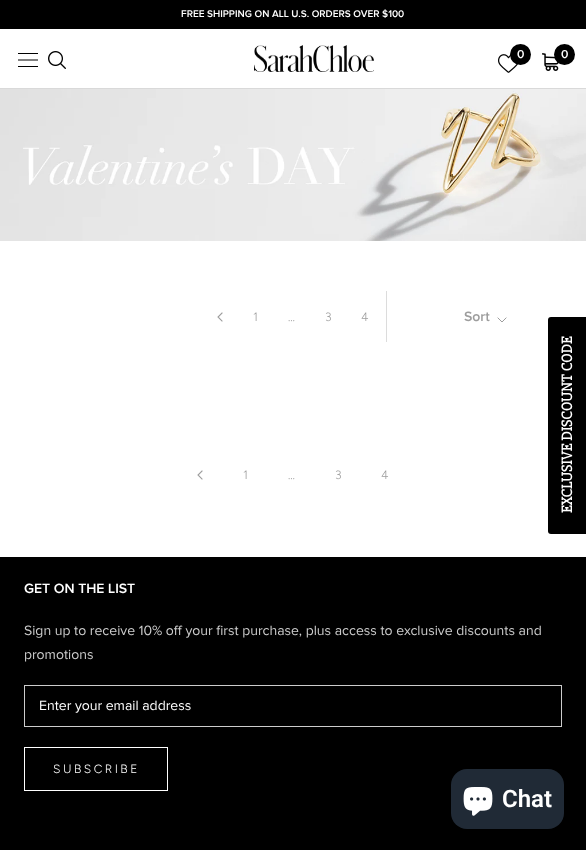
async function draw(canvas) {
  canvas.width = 586
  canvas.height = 850
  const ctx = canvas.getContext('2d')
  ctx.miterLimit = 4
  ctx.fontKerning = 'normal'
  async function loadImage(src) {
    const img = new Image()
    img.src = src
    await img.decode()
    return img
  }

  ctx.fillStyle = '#fff'
  ctx.fillRect(0, 0, 586, 850)
  ctx.fillStyle = '#000'
  ctx.fillRect(0, 0, 586, 29)
  ctx.font = '600 10px Proxima Nova'
  ctx.fillStyle = '#fff'
  ctx.fillText('FREE SHIPPING ON ALL U.S. ORDERS OVER $100', 181, 17)
  ctx.fillStyle = '#d9d9d9'
  ctx.fillRect(0, 88, 586, 1)
  ctx.drawImage(await loadImage('image0.png'), 18, 53, 20, 14)
  ctx.drawImage(await loadImage('image1.png'), 48, 51, 18, 18)
  ctx.drawImage(await loadImage('image2.png'), 254, 45, 120, 27)
  ctx.drawImage(await loadImage('image3.png'), 498, 54, 20, 19)
  ctx.fillStyle = '#000'
  ctx.beginPath()
  ctx.arc(520.5, 54.5, 10.5, 0, 2 * Math.PI)
  ctx.fill()
  ctx.font = '600 12px Proxima Nova'
  ctx.fillStyle = '#fff'
  ctx.fillText('0', 517, 58)
  ctx.drawImage(await loadImage('image4.png'), 542, 53, 17, 18)
  ctx.fillStyle = '#000'
  ctx.beginPath()
  ctx.arc(564.5, 54.5, 10.5, 0, 2 * Math.PI)
  ctx.fill()
  ctx.fillStyle = '#fff'
  ctx.fillText('0', 561, 58)
  ctx.drawImage(await loadImage('image5.png'), 0, 89, 586, 152)
  ctx.beginPath()
  ctx.moveTo(222, 313)
  ctx.lineTo(218, 317)
  ctx.lineTo(222, 321)
  ctx.strokeStyle = '#9d9d9d'
  ctx.lineWidth = 1.1
  ctx.lineCap = 'square'
  ctx.stroke()
  ctx.font = '300 12px Figtree'
  ctx.fillStyle = '#9d9d9d'
  ctx.fillText('1', 253, 321)
  ctx.fillText('…', 288, 321)
  ctx.fillText('3', 325, 321)
  ctx.fillText('4', 361, 321)
  ctx.fillStyle = '#dcdcdc'
  ctx.fillRect(386, 291, 1, 51)
  ctx.font = '600 14px Proxima Nova'
  ctx.fillStyle = '#9d9d9d'
  ctx.fillText('Sort', 464, 321)
  ctx.beginPath()
  ctx.moveTo(506, 318)
  ctx.lineTo(502, 322)
  ctx.lineTo(498, 318)
  ctx.lineWidth = 1
  ctx.stroke()
  ctx.beginPath()
  ctx.moveTo(202, 471)
  ctx.lineTo(198, 475)
  ctx.lineTo(202, 479)
  ctx.lineWidth = 1.1
  ctx.stroke()
  ctx.font = '300 12px Figtree'
  ctx.fillText('1', 243, 479)
  ctx.fillText('…', 288, 479)
  ctx.fillText('3', 335, 479)
  ctx.fillText('4', 381, 479)
  ctx.fillStyle = '#000'
  ctx.fillRect(0, 557, 586, 293)
  ctx.font = '600 14px Proxima Nova'
  ctx.fillStyle = '#fff'
  ctx.fillText('GET ON THE LIST', 24, 593)
  ctx.font = '14px Proxima Nova'
  ctx.fillStyle = '#ccc'
  ctx.fillText('Sign up to receive 10% off your first purchase, plus access to exclusive discounts and', 24, 635)
  ctx.fillText('promotions', 24, 659)
  ctx.strokeStyle = '#ccc'
  ctx.lineWidth = 1
  ctx.strokeRect(24.5, 685.5, 537, 41)
  ctx.fillStyle = '#fff'
  ctx.fillText('Enter your email address', 39, 710)
  ctx.strokeStyle = '#fff'
  ctx.strokeRect(24.5, 747.5, 143, 43)
  ctx.letterSpacing = '2.5px'
  ctx.font = '300 12px Figtree'
  ctx.fillText('SUBSCRIBE', 53, 773)
  ctx.fillStyle = '#000'
  ctx.beginPath()
  ctx.roundRect(548, 317, 38, 217, [3, 0, 0, 3])
  ctx.fill()
  ctx.letterSpacing = '0px'
  ctx.font = 'bold 15px "Slabo 27px"'
  ctx.fillStyle = '#fff'
  ctx.save()
  ctx.translate(572, 513)
  ctx.rotate(-90 * Math.PI / 180)
  ctx.fillText('EXCLUSIVE DISCOUNT CODE', 0, 0)
  ctx.restore()
  ctx.fillStyle = '#202a36'
  ctx.beginPath()
  ctx.roundRect(451, 769, 113, 60, 16)
  ctx.fill()
  ctx.drawImage(await loadImage('image6.png'), 463, 787, 30, 29)
  ctx.font = '600 24px Roboto'
  ctx.fillStyle = '#fff'
  ctx.fillText('Chat', 502, 807)
}

draw(document.querySelector('canvas'))
